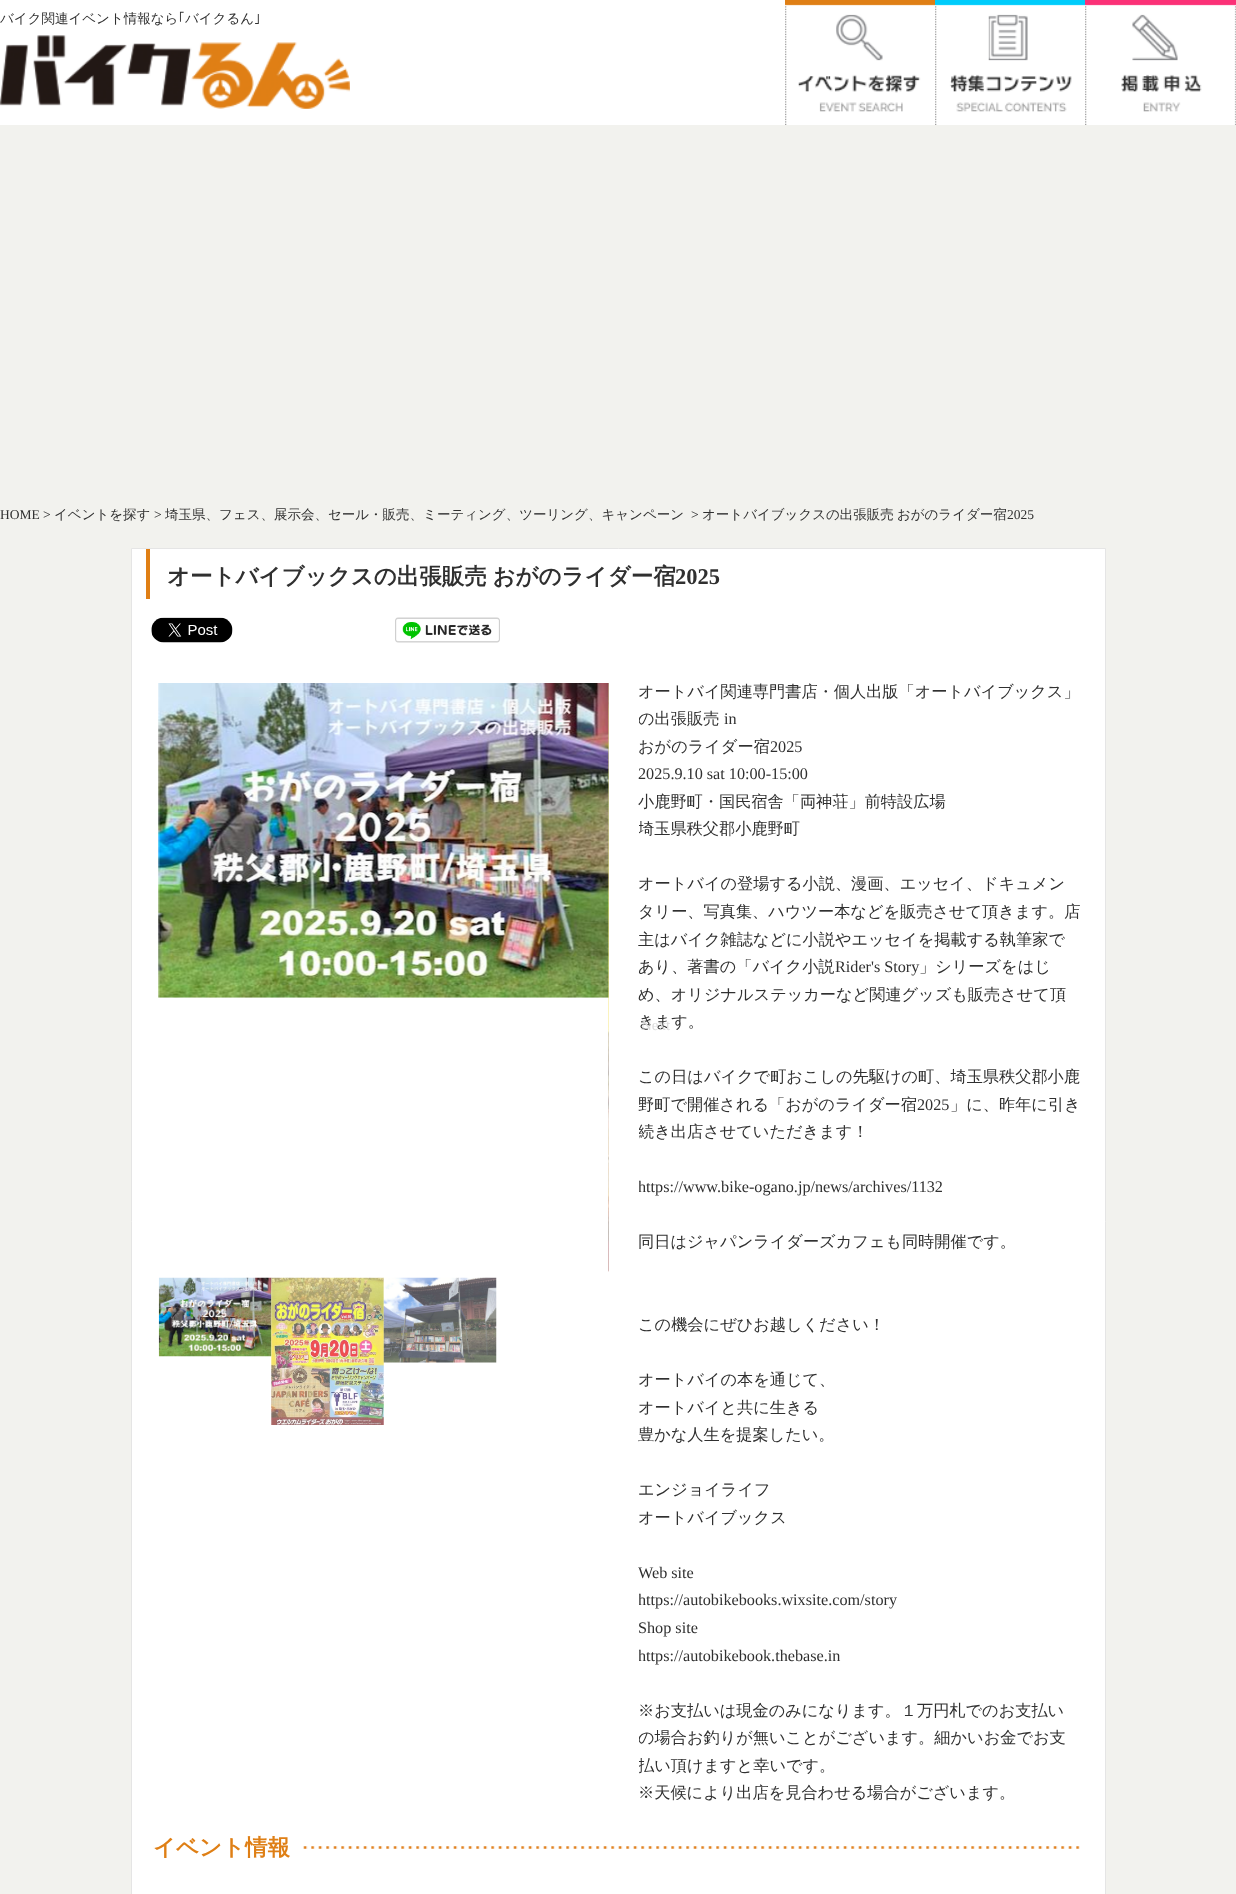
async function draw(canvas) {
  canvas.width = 1236
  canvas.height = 1894
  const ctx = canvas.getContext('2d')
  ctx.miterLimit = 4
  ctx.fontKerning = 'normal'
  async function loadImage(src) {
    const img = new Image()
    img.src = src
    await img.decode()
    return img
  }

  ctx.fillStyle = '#f2f2ee'
  ctx.fillRect(0, 0, 1236, 1894)
  ctx.fillStyle = '#fff'
  ctx.fillRect(0, 0, 785, 125)
  ctx.drawImage(await loadImage('image0.png'), 0, 35, 350, 74)
  ctx.drawImage(await loadImage('image1.png'), 785, 0, 150, 125)
  ctx.drawImage(await loadImage('image2.png'), 935, 0, 150, 125)
  ctx.drawImage(await loadImage('image3.png'), 1085, 0, 151, 125)
  ctx.font = '500 13.5px WenQuanYi Zen Hei'
  ctx.fillStyle = '#303030'
  ctx.fillText('バイク関連イベント情報なら', 0, 23)
  ctx.font = '13.5px IPAPGothic'
  ctx.fillText('｢', 178, 23)
  ctx.font = '500 13.5px WenQuanYi Zen Hei'
  ctx.fillText('バイクるん', 185, 23)
  ctx.font = '13.5px IPAPGothic'
  ctx.fillText('｣', 254, 23)
  ctx.font = '13.5px Liberation Serif'
  ctx.fillText('HOME >', 0, 519)
  ctx.font = '500 13.5px WenQuanYi Zen Hei'
  ctx.fillText('イベントを探す', 54, 519)
  ctx.font = '13.5px Liberation Serif'
  ctx.fillText('>', 154, 519)
  ctx.font = '500 13.5px WenQuanYi Zen Hei'
  ctx.fillText('埼玉県、フェス、展示会、セール・販売、ミーティング、ツーリング、キャンペーン', 165, 519)
  ctx.font = '13.5px Liberation Serif'
  ctx.fillText('>', 691, 519)
  ctx.wordSpacing = '-1px'
  ctx.font = '500 13.5px WenQuanYi Zen Hei'
  ctx.fillText('オートバイブックスの出張販売 おがのライダー宿', 702, 519)
  ctx.wordSpacing = '0px'
  ctx.font = '13.5px Liberation Serif'
  ctx.fillText('2025', 1007, 519)
  ctx.fillStyle = '#fff'
  ctx.beginPath()
  ctx.rect(131.5, 548.5, 974, 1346)
  ctx.fill()
  ctx.strokeStyle = '#e5e5e5'
  ctx.stroke()
  ctx.fillStyle = '#e07f15'
  ctx.fillRect(146, 549, 4, 50)
  ctx.wordSpacing = '-1px'
  ctx.font = 'bold 22.5px WenQuanYi Zen Hei'
  ctx.fillStyle = '#303030'
  ctx.fillText('オートバイブックスの出張販売 おがのライダー宿', 167, 584)
  ctx.wordSpacing = '0px'
  ctx.font = 'bold 22.5px Liberation Serif'
  ctx.fillText('2025', 675, 584)
  ctx.drawImage(await loadImage('image4.png'), 151, 617, 82, 26)
  ctx.drawImage(await loadImage('image5.png'), 395, 617, 105, 26)
  ctx.font = '500 16.2px WenQuanYi Zen Hei'
  ctx.fillText('オートバイ関連専門書店・個人出版「オートバイブックス」', 638, 697)
  ctx.save()
  ctx.beginPath()
  ctx.rect(639, 678, 442, 1130)
  ctx.clip()
  ctx.fillText('の出張販売', 638, 724)
  ctx.restore()
  ctx.font = '16.2px Liberation Serif'
  ctx.fillText('in', 724, 724)
  ctx.font = '500 16.2px WenQuanYi Zen Hei'
  ctx.fillText('おがのライダー宿', 638, 752)
  ctx.font = '16.2px Liberation Serif'
  ctx.fillText('2025', 770, 752)
  ctx.fillText('2025.9.10 sat 10:00-15:00', 638, 779)
  ctx.font = '500 16.2px WenQuanYi Zen Hei'
  ctx.fillText('小鹿野町・国民宿舎「両神荘」前特設広場', 638, 807)
  ctx.save()
  ctx.beginPath()
  ctx.rect(639, 678, 442, 1130)
  ctx.clip()
  ctx.fillText('埼玉県秩父郡小鹿野町', 638, 834)
  ctx.restore()
  ctx.fillText('オートバイの登場する小説、漫画、エッセイ、ドキュメン', 638, 889)
  ctx.fillText('タリー、写真集、ハウツー本などを販売させて頂きます。店', 638, 917)
  ctx.fillText('主はバイク雑誌などに小説やエッセイを掲載する執筆家で', 638, 945)
  ctx.fillText('あり、著書の「バイク小説', 638, 972)
  ctx.font = '16.2px Liberation Serif'
  ctx.fillText('Rider\'s Story', 835, 972)
  ctx.font = '500 16.2px WenQuanYi Zen Hei'
  ctx.fillText('」シリーズをはじ', 919, 972)
  ctx.fillText('め、オリジナルステッカーなど関連グッズも販売させて頂', 638, 1000)
  ctx.fillText('きます。', 638, 1027)
  ctx.fillText('この日はバイクで町おこしの先駆けの町、埼玉県秩父郡小鹿', 638, 1082)
  ctx.fillText('野町で開催される「おがのライダー宿', 638, 1110)
  ctx.font = '16.2px Liberation Serif'
  ctx.fillText('2025', 917, 1110)
  ctx.font = '500 16.2px WenQuanYi Zen Hei'
  ctx.fillText('」に、昨年に引き', 950, 1110)
  ctx.save()
  ctx.beginPath()
  ctx.rect(639, 678, 442, 1130)
  ctx.clip()
  ctx.fillText('続き出店させていただきます！', 638, 1137)
  ctx.font = '16.2px Liberation Serif'
  ctx.fillText('https://www.bike-ogano.jp/news/archives/1132', 638, 1192)
  ctx.restore()
  ctx.fillText('同日はジャパンライダーズカフェも同時開催です。', 638, 1247)
  ctx.fillText('この機会にぜひお越しください！', 638, 1330)
  ctx.fillText('オートバイの本を通じて、', 638, 1385)
  ctx.fillText('オートバイと共に生きる', 638, 1413)
  ctx.fillText('豊かな人生を提案したい。', 638, 1440)
  ctx.fillText('エンジョイライフ', 638, 1495)
  ctx.fillText('オートバイブックス', 638, 1523)
  ctx.font = '16.2px Liberation Serif'
  ctx.fillText('Web site', 638, 1578)
  ctx.save()
  ctx.beginPath()
  ctx.rect(639, 678, 442, 1130)
  ctx.clip()
  ctx.fillText('https://autobikebooks.wixsite.com/story', 638, 1605)
  ctx.restore()
  ctx.fillText('Shop site', 638, 1633)
  ctx.save()
  ctx.beginPath()
  ctx.rect(639, 678, 442, 1130)
  ctx.clip()
  ctx.fillText('https://autobikebook.thebase.in', 638, 1661)
  ctx.restore()
  ctx.font = '500 16.2px WenQuanYi Zen Hei'
  ctx.fillText('※お支払いは現金のみになります。１万円札でのお支払い', 638, 1716)
  ctx.save()
  ctx.beginPath()
  ctx.rect(639, 678, 442, 1130)
  ctx.clip()
  ctx.fillText('の場合お釣りが無いことがございます。細かいお金でお支', 638, 1743)
  ctx.fillText('払い頂けますと幸いです。', 638, 1771)
  ctx.restore()
  ctx.fillText('※天候により出店を見合わせる場合がございます。', 638, 1798)
  ctx.drawImage(await loadImage('image6.png'), 158, 683, 451, 315)
  ctx.drawImage(await loadImage('image7.png'), 608, 683, 1, 589)
  ctx.font = '15px Liberation Serif'
  ctx.fillStyle = '#dcdcdc'
  ctx.fillText('Next', 641, 1030)
  ctx.drawImage(await loadImage('image8.png'), 158, 1277, 114, 80)
  ctx.drawImage(await loadImage('image9.png'), 271, 1277, 113, 148)
  ctx.drawImage(await loadImage('image10.png'), 383, 1277, 114, 86)
  ctx.drawImage(await loadImage('image11.png'), 153, 1846, 927, 3)
  ctx.fillStyle = '#fff'
  ctx.fillRect(154, 1846, 147, 3)
  ctx.font = 'bold 22.5px WenQuanYi Zen Hei'
  ctx.fillStyle = '#df7f15'
  ctx.fillText('イベント情報', 153, 1855)
}

draw(document.querySelector('canvas'))
